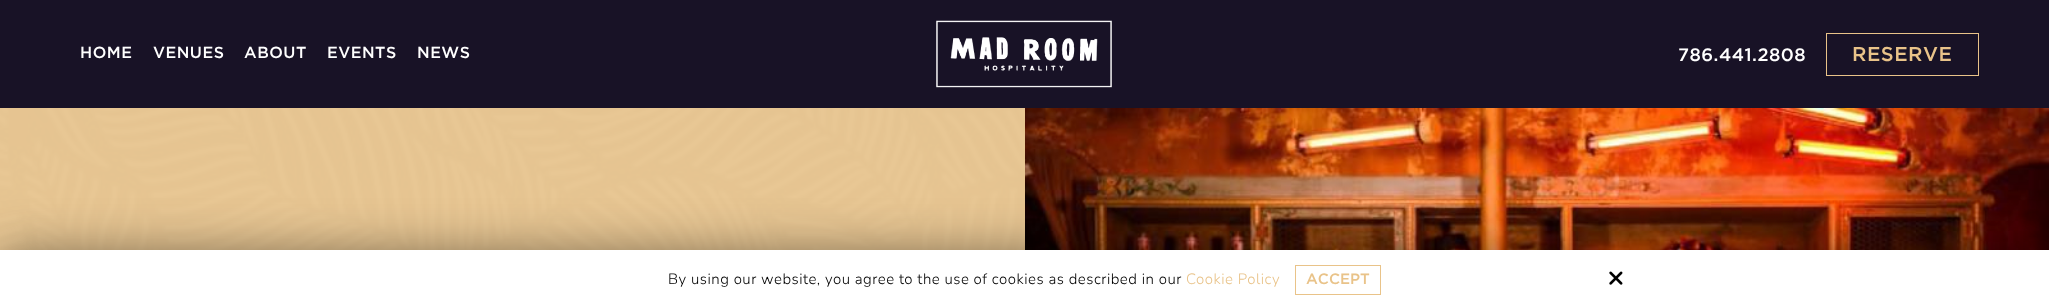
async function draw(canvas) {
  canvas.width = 2049
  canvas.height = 305
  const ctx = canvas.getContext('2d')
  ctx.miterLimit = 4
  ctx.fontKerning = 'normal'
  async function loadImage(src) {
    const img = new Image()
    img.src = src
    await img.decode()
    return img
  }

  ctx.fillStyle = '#181226'
  ctx.fillRect(0, 0, 2049, 305)
  ctx.letterSpacing = '0.5px'
  ctx.font = '500 16px Gotham'
  ctx.fillStyle = '#fff'
  ctx.fillText('HOME', 80, 58)
  ctx.fillText('VENUES', 153, 58)
  ctx.fillText('ABOUT', 244, 58)
  ctx.fillText('EVENTS', 327, 58)
  ctx.fillText('NEWS', 417, 58)
  ctx.drawImage(await loadImage('image0.png'), 936, 20, 176, 68)
  ctx.font = '500 18px Gotham'
  ctx.fillText('786.441.2808', 1678, 61)
  ctx.strokeStyle = '#e9c389'
  ctx.strokeRect(1826.5, 33.5, 152, 42)
  ctx.font = '500 20px Gotham'
  ctx.fillStyle = '#e9c389'
  ctx.fillText('RESERVE', 1852, 61)
  ctx.drawImage(await loadImage('image1.png'), 0, 108, 1025, 142)
  ctx.drawImage(await loadImage('image2.png'), 1025, 108, 1024, 142)
  ctx.fillStyle = '#00000080'
  ctx.filter = 'blur(25px)'
  ctx.beginPath()
  ctx.rect(0, 255, 2049, 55)
  ctx.fill()
  ctx.filter = 'none'
  ctx.fillStyle = '#fff'
  ctx.fillRect(0, 250, 2049, 55)
  ctx.font = '300 15px Nunito'
  ctx.fillStyle = '#000'
  ctx.fillText('By using our website, you agree to the use of cookies as described in our', 668, 284)
  ctx.fillStyle = '#e9c389'
  ctx.fillText('Cookie Policy', 1186, 284)
  ctx.strokeRect(1295.5, 265.5, 85, 29)
  ctx.letterSpacing = '0px'
  ctx.font = '500 15px Gotham'
  ctx.fillText('ACCEPT', 1306, 284)
  ctx.drawImage(await loadImage('image3.png'), 1609, 271, 14, 14)
}

draw(document.querySelector('canvas'))
